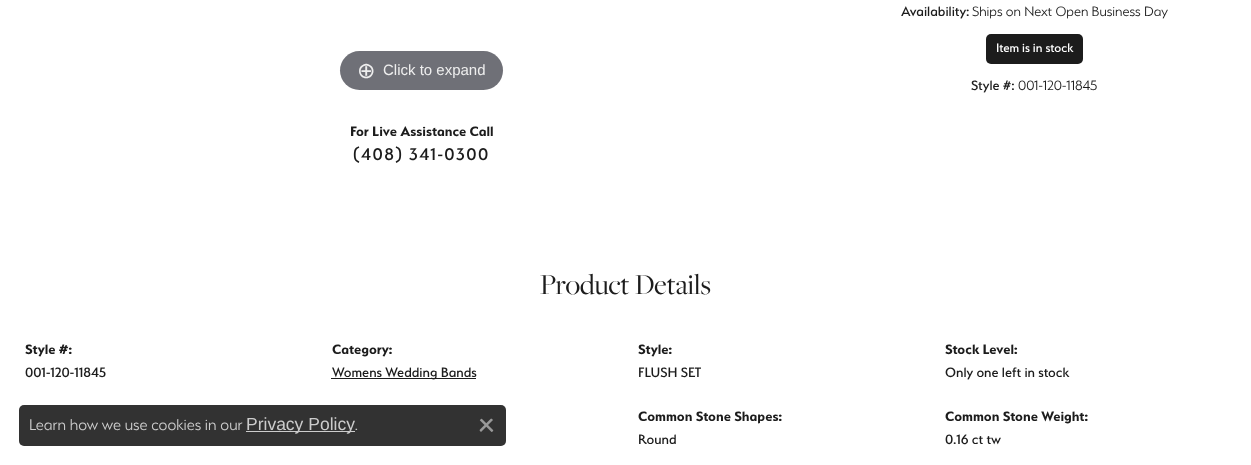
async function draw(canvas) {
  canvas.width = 1251
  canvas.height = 465
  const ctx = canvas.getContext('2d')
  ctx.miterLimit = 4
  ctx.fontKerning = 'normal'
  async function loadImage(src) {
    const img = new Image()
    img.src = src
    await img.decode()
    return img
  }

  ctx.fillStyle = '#fff'
  ctx.fillRect(0, 0, 1251, 465)
  ctx.font = '500 15.25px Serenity'
  ctx.fillStyle = '#1c1c1c'
  ctx.fillText('Availability:', 901, 16)
  ctx.font = '300 15.25px Serenity'
  ctx.fillText('Ships on Next Open Business Day', 972, 16)
  ctx.beginPath()
  ctx.roundRect(986, 34, 97, 30, 5)
  ctx.fill()
  ctx.font = '500 13.75px Serenity'
  ctx.fillStyle = '#fff'
  ctx.fillText('Item is in stock', 996, 52)
  ctx.font = '500 15.25px Serenity'
  ctx.fillStyle = '#1c1c1c'
  ctx.fillText('Style #:', 971, 90)
  ctx.font = '300 15.25px Serenity'
  ctx.fillText('001-120-11845', 1018, 90)
  ctx.fillStyle = '#6f7077'
  ctx.beginPath()
  ctx.roundRect(340, 51, 163, 39, 19.5)
  ctx.fill()
  ctx.font = '22px DejaVu Sans'
  ctx.fillStyle = '#eee'
  ctx.fillText('⊕', 357, 78)
  ctx.font = '15px Liberation Sans'
  ctx.fillText('Click to expand', 383, 75)
  ctx.font = 'bold 15.25px Serenity'
  ctx.fillStyle = '#1c1c1c'
  ctx.fillText('For Live Assistance Call', 350, 136)
  ctx.letterSpacing = '1.5px'
  ctx.font = '500 19px Serenity'
  ctx.fillText('(408) 341-0300', 353, 160)
  ctx.letterSpacing = '0px'
  ctx.font = '30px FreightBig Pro'
  ctx.fillText('Product Details', 540, 294)
  ctx.font = 'bold 15.25px Serenity'
  ctx.fillText('Style #:', 25, 354)
  ctx.font = '500 15.25px Serenity'
  ctx.fillText('001-120-11845', 25, 377)
  ctx.font = 'bold 15.25px Serenity'
  ctx.fillText('Category:', 332, 354)
  ctx.fillRect(331, 378, 145, 1)
  ctx.font = '500 15.25px Serenity'
  ctx.fillText('Womens Wedding Bands', 332, 377)
  ctx.font = 'bold 15.25px Serenity'
  ctx.fillText('Style:', 638, 354)
  ctx.font = '500 15.25px Serenity'
  ctx.fillText('FLUSH SET', 638, 377)
  ctx.font = 'bold 15.25px Serenity'
  ctx.fillText('Common Stone Shapes:', 638, 421)
  ctx.font = '500 15.25px Serenity'
  ctx.fillText('Round', 638, 444)
  ctx.font = 'bold 15.25px Serenity'
  ctx.fillText('Stock Level:', 945, 354)
  ctx.font = '500 15.25px Serenity'
  ctx.fillText('Only one left in stock', 945, 377)
  ctx.font = 'bold 15.25px Serenity'
  ctx.fillText('Common Stone Weight:', 945, 421)
  ctx.font = '500 15.25px Serenity'
  ctx.fillText('0.16 ct tw', 945, 444)
  ctx.fillStyle = '#1c1c1ce6'
  ctx.beginPath()
  ctx.roundRect(19, 405, 487, 41, 5)
  ctx.fill()
  ctx.font = '300 17.5px Serenity'
  ctx.fillStyle = '#ccc'
  ctx.fillText('Learn how we use cookies in our', 29, 430)
  ctx.fillRect(246, 431, 109, 1)
  ctx.font = '17.5px Liberation Sans'
  ctx.fillText('Privacy Policy', 246, 430)
  ctx.font = '300 17.5px Serenity'
  ctx.fillText('.', 355, 430)
  ctx.drawImage(await loadImage('image0.png'), 479, 418, 15, 14)
}

draw(document.querySelector('canvas'))
